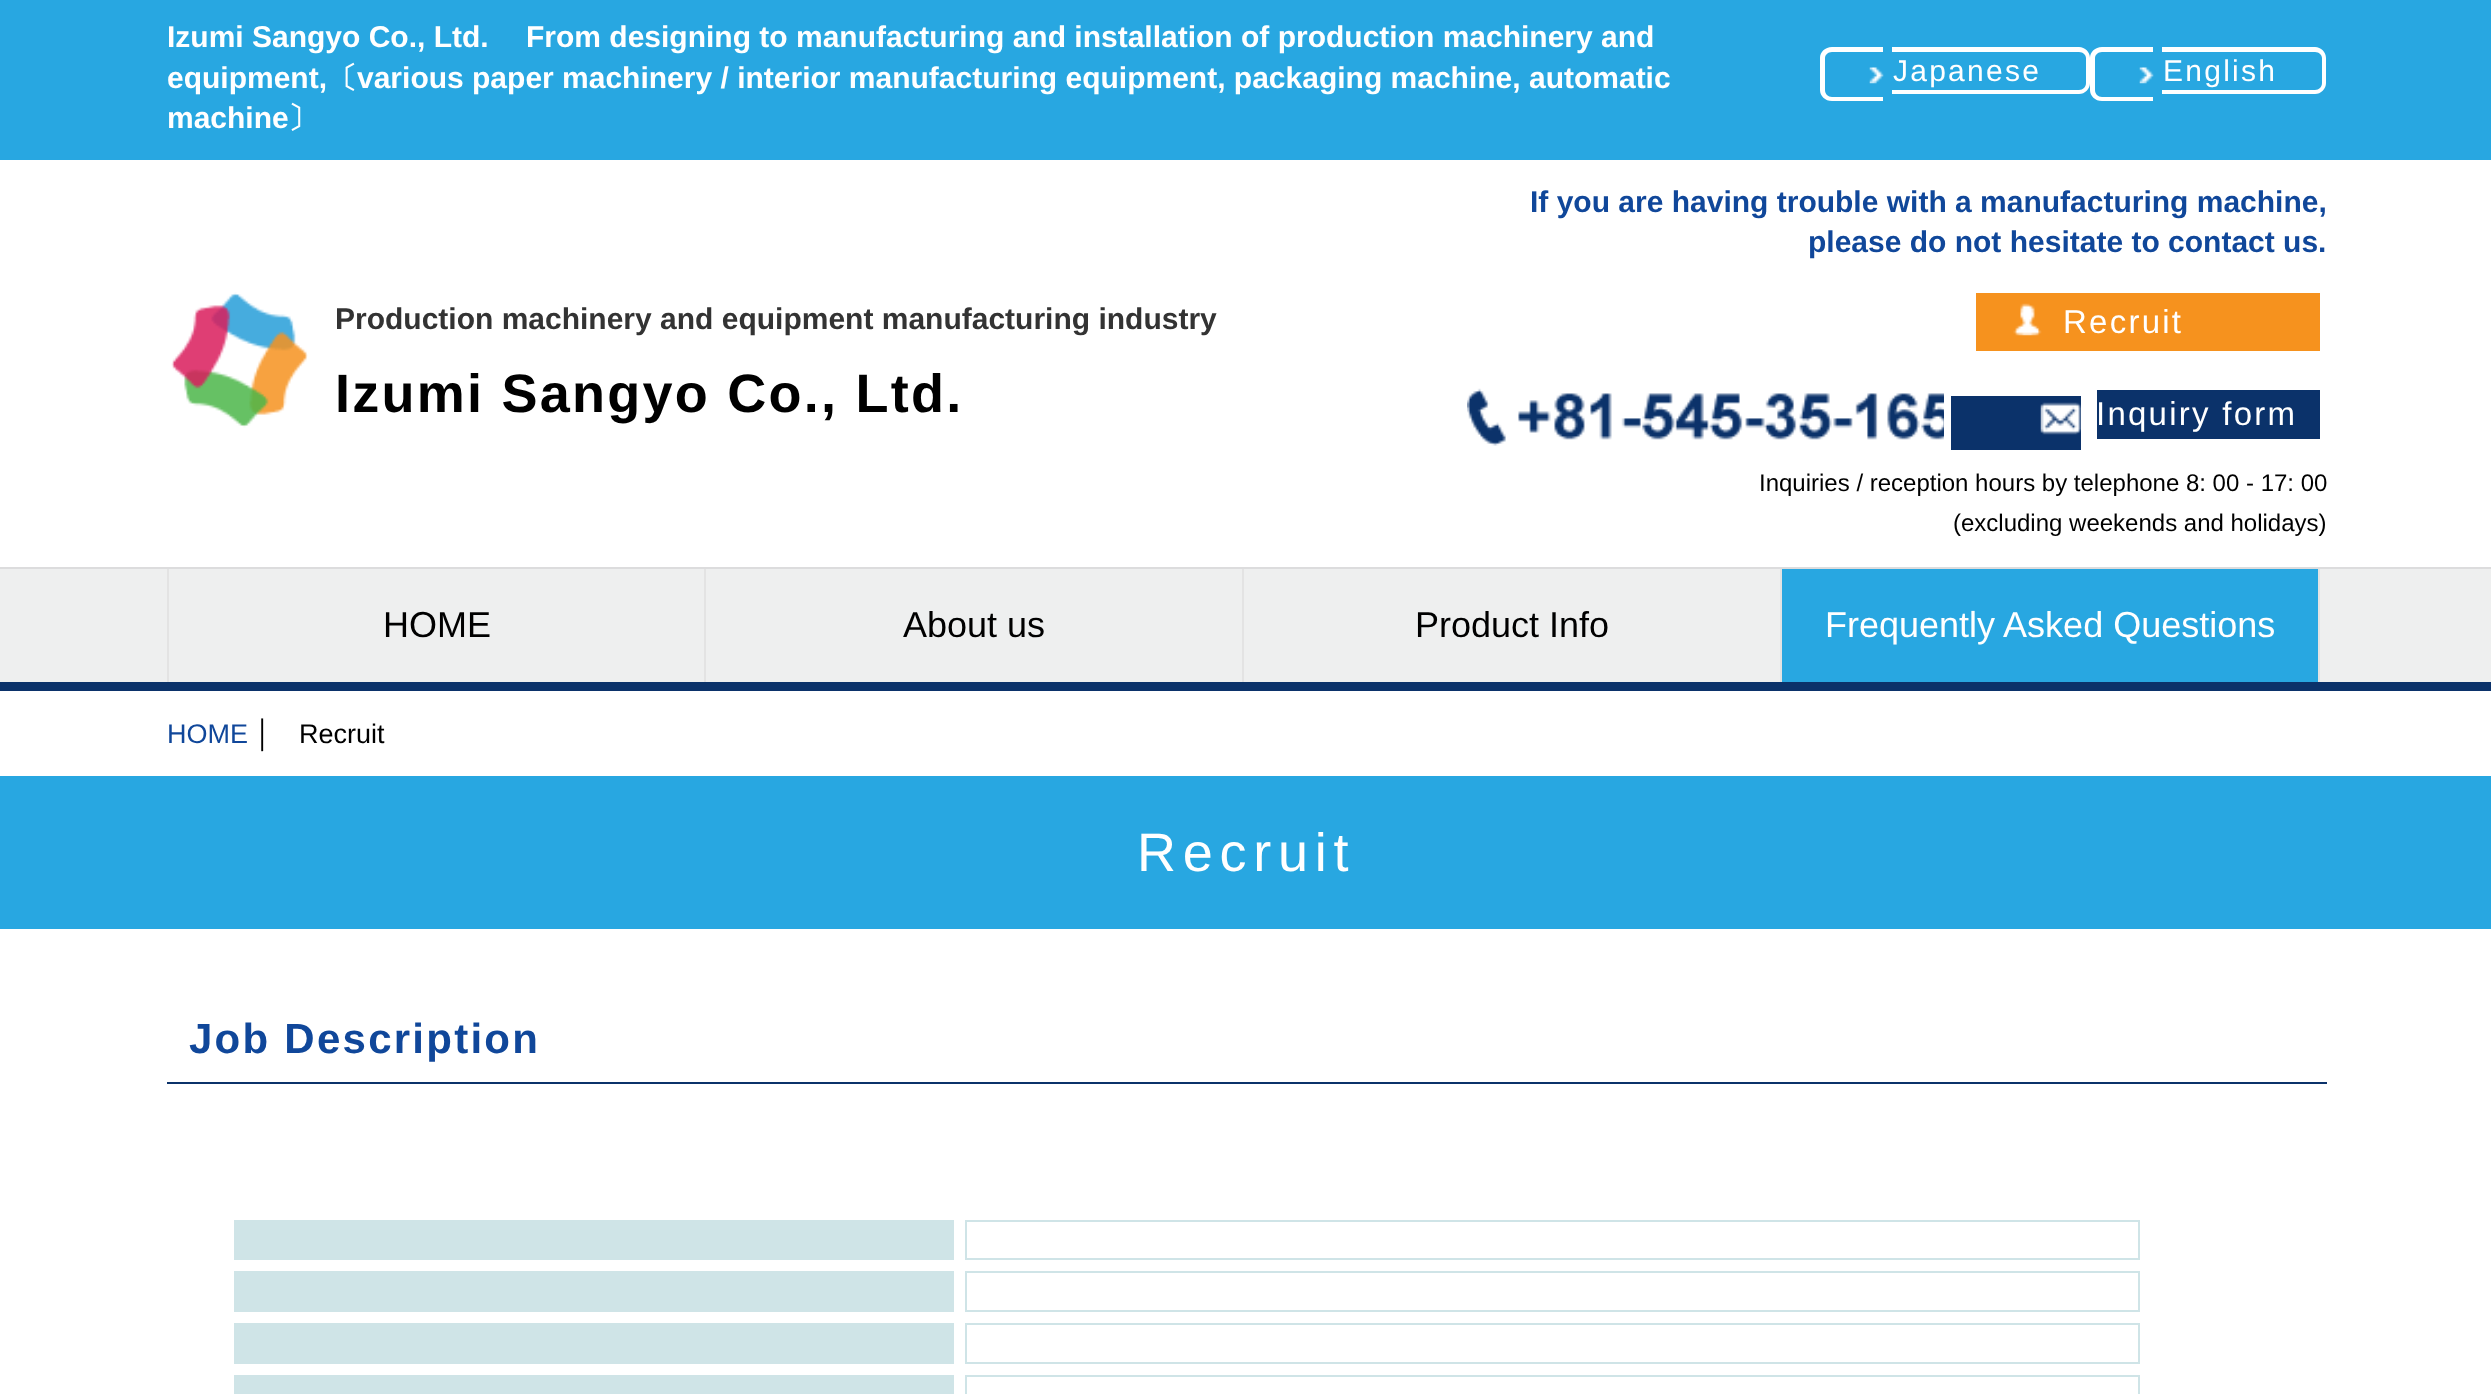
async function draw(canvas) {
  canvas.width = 2491
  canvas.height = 1394
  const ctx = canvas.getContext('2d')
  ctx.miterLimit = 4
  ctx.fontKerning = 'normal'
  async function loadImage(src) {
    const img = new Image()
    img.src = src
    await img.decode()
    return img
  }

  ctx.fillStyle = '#fff'
  ctx.fillRect(0, 0, 2491, 1394)
  ctx.fillStyle = '#28a7e1'
  ctx.fillRect(0, 0, 2491, 160)
  ctx.font = 'bold 30px Liberation Sans'
  ctx.fillStyle = '#fff'
  ctx.fillText('Izumi Sangyo Co., Ltd.', 167, 47)
  ctx.fillText('From designing to manufacturing and installation of production machinery and', 526, 47)
  ctx.fillText('equipment,', 167, 88)
  ctx.font = 'bold 30px WenQuanYi Zen Hei'
  ctx.fillText('〔', 327, 88)
  ctx.font = 'bold 30px Liberation Sans'
  ctx.fillText('various paper machinery / interior manufacturing equipment, packaging machine, automatic', 357, 88)
  ctx.fillText('machine', 167, 128)
  ctx.font = 'bold 30px WenQuanYi Zen Hei'
  ctx.fillText('〕', 288, 128)
  ctx.beginPath()
  ctx.moveTo(1832, 47)
  ctx.lineTo(1883, 47)
  ctx.lineTo(1883, 101)
  ctx.lineTo(1832, 101)
  ctx.bezierCurveTo(1825, 101, 1820, 96, 1820, 90)
  ctx.lineTo(1820, 58)
  ctx.bezierCurveTo(1820, 52, 1825, 47, 1832, 47)
  ctx.closePath()
  ctx.moveTo(1832, 52)
  ctx.lineTo(1883, 52)
  ctx.lineTo(1883, 97)
  ctx.lineTo(1832, 97)
  ctx.bezierCurveTo(1828, 97, 1825, 94, 1825, 90)
  ctx.lineTo(1825, 58)
  ctx.bezierCurveTo(1825, 55, 1828, 52, 1832, 52)
  ctx.closePath()
  ctx.fill('evenodd')
  ctx.beginPath()
  ctx.moveTo(1892, 47)
  ctx.lineTo(2079, 47)
  ctx.bezierCurveTo(2085, 47, 2090, 52, 2090, 58)
  ctx.lineTo(2090, 83)
  ctx.bezierCurveTo(2090, 89, 2085, 94, 2079, 94)
  ctx.lineTo(1892, 94)
  ctx.closePath()
  ctx.moveTo(1892, 52)
  ctx.lineTo(2079, 52)
  ctx.bezierCurveTo(2083, 52, 2086, 55, 2086, 58)
  ctx.lineTo(2086, 83)
  ctx.bezierCurveTo(2086, 87, 2083, 90, 2079, 90)
  ctx.lineTo(1892, 90)
  ctx.closePath()
  ctx.fill('evenodd')
  ctx.drawImage(await loadImage('image0.png'), 1869, 67, 15, 17)
  ctx.letterSpacing = '2.25px'
  ctx.font = '30px Liberation Sans'
  ctx.fillText('Japanese', 1893, 81)
  ctx.beginPath()
  ctx.moveTo(2102, 47)
  ctx.lineTo(2153, 47)
  ctx.lineTo(2153, 101)
  ctx.lineTo(2102, 101)
  ctx.bezierCurveTo(2095, 101, 2090, 96, 2090, 90)
  ctx.lineTo(2090, 58)
  ctx.bezierCurveTo(2090, 52, 2095, 47, 2102, 47)
  ctx.closePath()
  ctx.moveTo(2102, 52)
  ctx.lineTo(2153, 52)
  ctx.lineTo(2153, 97)
  ctx.lineTo(2102, 97)
  ctx.bezierCurveTo(2098, 97, 2095, 94, 2095, 90)
  ctx.lineTo(2095, 58)
  ctx.bezierCurveTo(2095, 55, 2098, 52, 2102, 52)
  ctx.closePath()
  ctx.fill('evenodd')
  ctx.beginPath()
  ctx.moveTo(2162, 47)
  ctx.lineTo(2315, 47)
  ctx.bezierCurveTo(2321, 47, 2326, 52, 2326, 58)
  ctx.lineTo(2326, 83)
  ctx.bezierCurveTo(2326, 89, 2321, 94, 2315, 94)
  ctx.lineTo(2162, 94)
  ctx.closePath()
  ctx.moveTo(2162, 52)
  ctx.lineTo(2315, 52)
  ctx.bezierCurveTo(2319, 52, 2322, 55, 2322, 58)
  ctx.lineTo(2322, 83)
  ctx.bezierCurveTo(2322, 87, 2319, 90, 2315, 90)
  ctx.lineTo(2162, 90)
  ctx.closePath()
  ctx.fill('evenodd')
  ctx.drawImage(await loadImage('image0.png'), 2139, 67, 15, 17)
  ctx.fillText('English', 2163, 81)
  ctx.drawImage(await loadImage('image1.png'), 171, 292, 137, 136)
  ctx.letterSpacing = '0px'
  ctx.font = 'bold 30px Liberation Sans'
  ctx.fillStyle = '#333'
  ctx.fillText('Production machinery and equipment manufacturing industry', 335, 329)
  ctx.letterSpacing = '2.25px'
  ctx.font = 'bold 54px Liberation Sans'
  ctx.fillStyle = '#000'
  ctx.fillText('Izumi Sangyo Co., Ltd.', 335, 412)
  ctx.letterSpacing = '0px'
  ctx.font = 'bold 30px Liberation Sans'
  ctx.fillStyle = '#10479a'
  ctx.fillText('If you are having trouble with a manufacturing machine,', 1530, 212)
  ctx.fillText('please do not hesitate to contact us.', 1808, 252)
  ctx.fillStyle = '#f6921e'
  ctx.fillRect(1976, 293, 344, 58)
  ctx.drawImage(await loadImage('image2.png'), 2013, 303, 29, 33)
  ctx.letterSpacing = '2.25px'
  ctx.font = '33px Liberation Sans'
  ctx.fillStyle = '#fff'
  ctx.fillText('Recruit', 2063, 333)
  ctx.drawImage(await loadImage('image3.png'), 1467, 388, 477, 58)
  ctx.fillStyle = '#0b326a'
  ctx.fillRect(1951, 396, 130, 54)
  ctx.fillRect(2097, 390, 223, 49)
  ctx.drawImage(await loadImage('image4.png'), 2040, 402, 41, 33)
  ctx.fillStyle = '#fff'
  ctx.fillText('Inquiry form', 2096, 425)
  ctx.letterSpacing = '0px'
  ctx.font = '24px Liberation Sans'
  ctx.fillStyle = '#000'
  ctx.fillText('Inquiries / reception hours by telephone 8: 00 - 17: 00', 1759, 491)
  ctx.fillText('(excluding weekends and holidays)', 1953, 531)
  ctx.fillStyle = '#eeefef'
  ctx.fillRect(0, 569, 2491, 113)
  ctx.fillStyle = '#dcdcdd'
  ctx.fillRect(0, 567, 2491, 2)
  ctx.fillStyle = '#0b326a'
  ctx.fillRect(0, 682, 2491, 9)
  ctx.fillStyle = '#e3e3e3'
  ctx.fillRect(704, 569, 2, 113)
  ctx.fillRect(167, 569, 2, 113)
  ctx.font = '36px Liberation Sans'
  ctx.fillStyle = '#000'
  ctx.fillText('HOME', 383, 637)
  ctx.fillStyle = '#e3e3e3'
  ctx.fillRect(1242, 569, 2, 113)
  ctx.fillStyle = '#000'
  ctx.fillText('About us', 903, 637)
  ctx.fillStyle = '#e3e3e3'
  ctx.fillRect(1780, 569, 2, 113)
  ctx.fillStyle = '#000'
  ctx.fillText('Product Info', 1415, 637)
  ctx.fillStyle = '#e3e3e3'
  ctx.fillRect(2318, 569, 2, 113)
  ctx.fillStyle = '#28a7e1'
  ctx.fillRect(1782, 569, 536, 113)
  ctx.fillStyle = '#fff'
  ctx.fillText('Frequently Asked Questions', 1825, 637)
  ctx.font = '27px Liberation Sans'
  ctx.fillStyle = '#10479a'
  ctx.fillText('HOME', 167, 743)
  ctx.fillStyle = '#000'
  ctx.fillText('│', 255, 743)
  ctx.fillText('Recruit', 299, 743)
  ctx.fillStyle = '#28a7e1'
  ctx.fillRect(0, 776, 2491, 153)
  ctx.letterSpacing = '6.75px'
  ctx.font = '54px Liberation Sans'
  ctx.fillStyle = '#fff'
  ctx.fillText('Recruit', 1137, 871)
  ctx.fillStyle = '#0b326a'
  ctx.fillRect(167, 1082, 2160, 2)
  ctx.letterSpacing = '2.25px'
  ctx.font = 'bold 42px Liberation Sans'
  ctx.fillStyle = '#10479a'
  ctx.fillText('Job Description', 189, 1053)
  ctx.fillStyle = '#cfe4e7'
  ctx.fillRect(234, 1220, 720, 40)
  ctx.strokeStyle = '#cfe4e7'
  ctx.lineWidth = 2
  ctx.strokeRect(966, 1221, 1173, 38)
  ctx.fillRect(234, 1271, 720, 41)
  ctx.strokeRect(966, 1272, 1173, 39)
  ctx.fillRect(234, 1323, 720, 41)
  ctx.strokeRect(966, 1324, 1173, 39)
  ctx.fillRect(234, 1375, 720, 19)
  ctx.strokeRect(966, 1376, 1173, 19)
}

draw(document.querySelector('canvas'))
